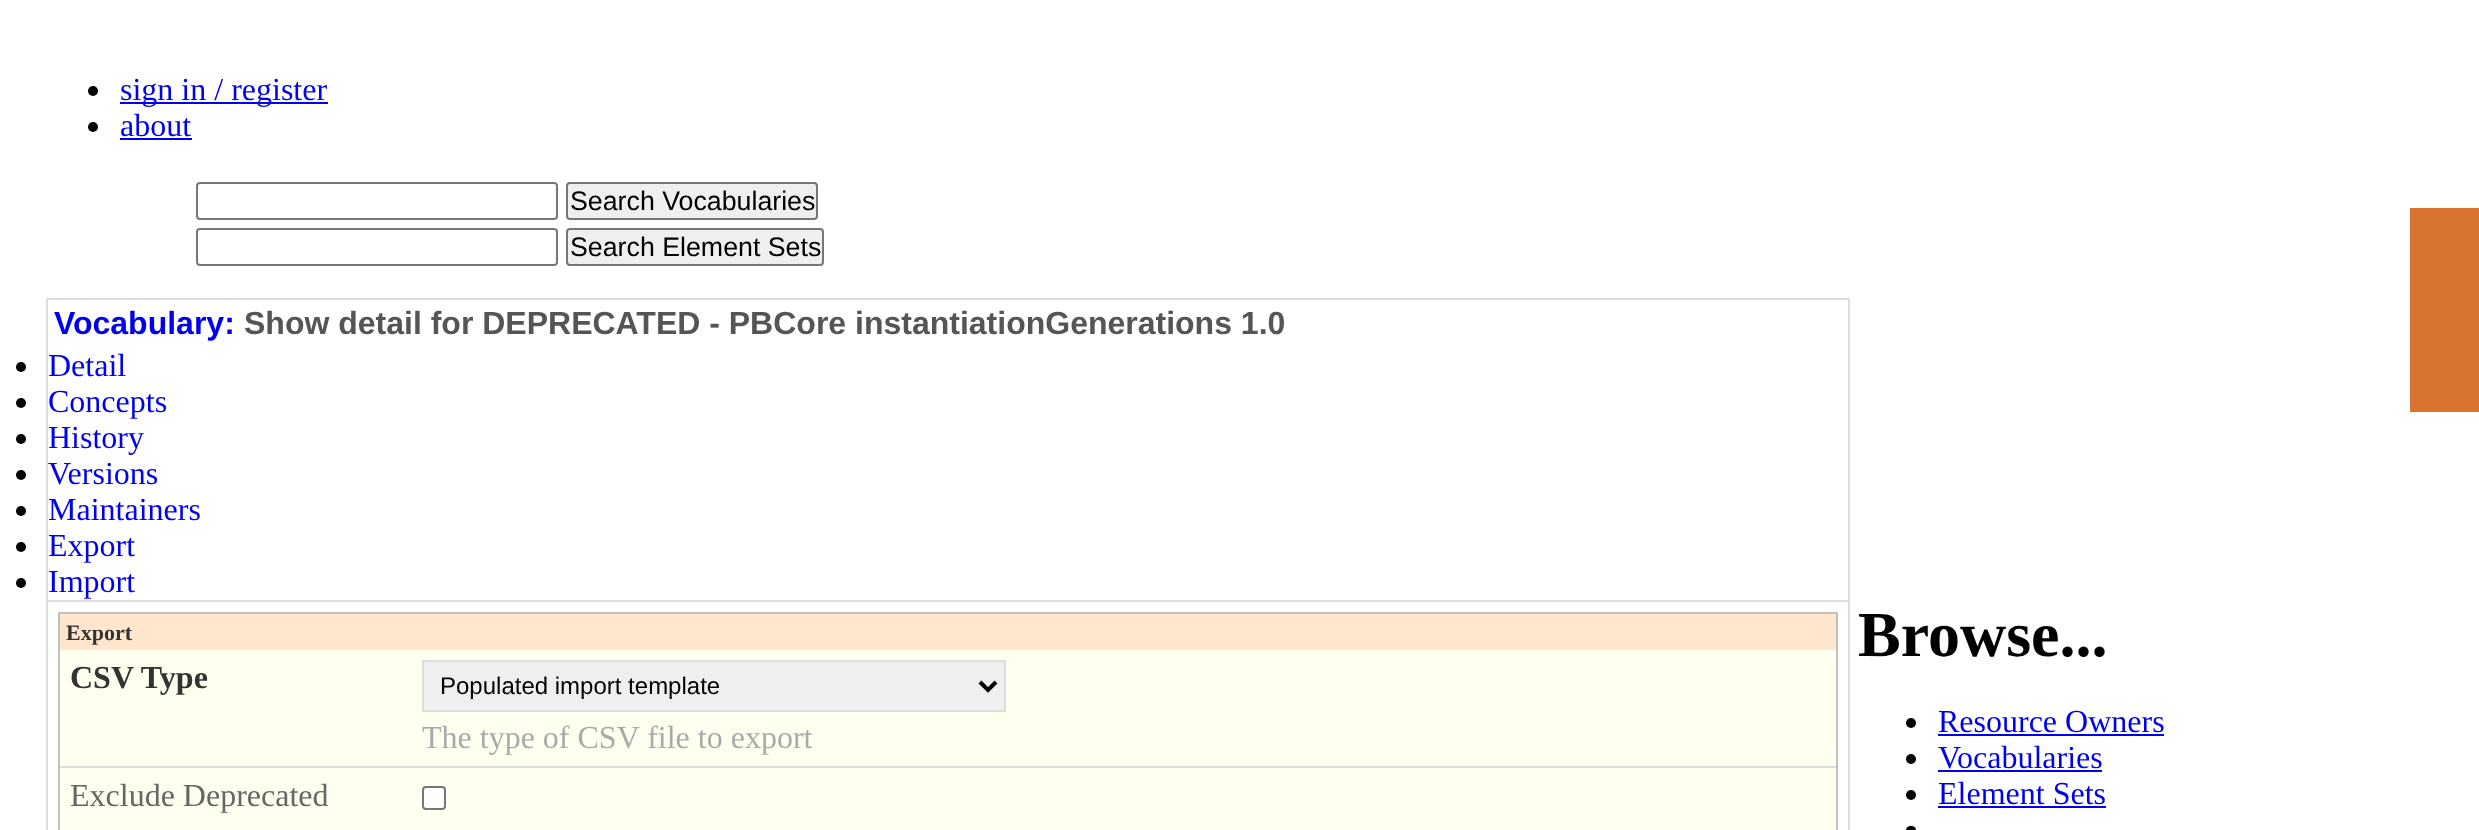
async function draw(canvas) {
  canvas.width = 2479
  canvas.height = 830
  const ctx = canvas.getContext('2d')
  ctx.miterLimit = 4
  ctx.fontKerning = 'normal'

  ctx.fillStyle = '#fff'
  ctx.fillRect(0, 0, 2479, 830)
  ctx.fillStyle = '#000'
  ctx.beginPath()
  ctx.arc(93, 91, 5, 0, 2 * Math.PI)
  ctx.fill()
  ctx.fillStyle = '#00e'
  ctx.fillRect(120, 102, 208, 2)
  ctx.font = '32px Liberation Serif'
  ctx.fillText('sign in / register', 120, 100)
  ctx.fillStyle = '#000'
  ctx.beginPath()
  ctx.arc(93, 127, 5, 0, 2 * Math.PI)
  ctx.fill()
  ctx.fillStyle = '#00e'
  ctx.fillText('about', 120, 136)
  ctx.fillRect(120, 138, 72, 2)
  ctx.beginPath()
  ctx.roundRect(197, 183, 360, 36, 3)
  ctx.strokeStyle = '#767676'
  ctx.lineWidth = 2
  ctx.stroke()
  ctx.fillStyle = '#efefef'
  ctx.beginPath()
  ctx.roundRect(567, 183, 250, 36, 3)
  ctx.fill()
  ctx.stroke()
  ctx.font = '26.75px Liberation Sans'
  ctx.fillStyle = '#000'
  ctx.fillText('Search Vocabularies', 570, 210)
  ctx.beginPath()
  ctx.roundRect(197, 229, 360, 36, 3)
  ctx.stroke()
  ctx.fillStyle = '#efefef'
  ctx.beginPath()
  ctx.roundRect(567, 229, 256, 36, 3)
  ctx.fill()
  ctx.stroke()
  ctx.fillStyle = '#000'
  ctx.fillText('Search Element Sets', 570, 256)
  ctx.strokeStyle = '#ddd'
  ctx.strokeRect(47, 299, 1802, 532)
  ctx.font = 'bold 32px Liberation Sans'
  ctx.fillStyle = '#00e'
  ctx.fillText('Vocabulary:', 54, 334)
  ctx.fillStyle = '#555'
  ctx.fillText('Show detail for DEPRECATED - PBCore instantiationGenerations 1.0', 244, 334)
  ctx.fillStyle = '#000'
  ctx.beginPath()
  ctx.arc(21, 367, 5, 0, 2 * Math.PI)
  ctx.fill()
  ctx.font = '32px Liberation Serif'
  ctx.fillStyle = '#00e'
  ctx.fillText('Detail', 48, 376)
  ctx.fillStyle = '#000'
  ctx.beginPath()
  ctx.arc(21, 403, 5, 0, 2 * Math.PI)
  ctx.fill()
  ctx.fillStyle = '#00e'
  ctx.fillText('Concepts', 48, 412)
  ctx.fillStyle = '#000'
  ctx.beginPath()
  ctx.arc(21, 439, 5, 0, 2 * Math.PI)
  ctx.fill()
  ctx.fillStyle = '#00e'
  ctx.fillText('History', 48, 448)
  ctx.fillStyle = '#000'
  ctx.beginPath()
  ctx.arc(21, 475, 5, 0, 2 * Math.PI)
  ctx.fill()
  ctx.fillStyle = '#00e'
  ctx.fillText('Versions', 48, 484)
  ctx.fillStyle = '#000'
  ctx.beginPath()
  ctx.arc(21, 511, 5, 0, 2 * Math.PI)
  ctx.fill()
  ctx.fillStyle = '#00e'
  ctx.fillText('Maintainers', 48, 520)
  ctx.fillStyle = '#000'
  ctx.beginPath()
  ctx.arc(21, 547, 5, 0, 2 * Math.PI)
  ctx.fill()
  ctx.fillStyle = '#00e'
  ctx.fillText('Export', 48, 556)
  ctx.fillStyle = '#000'
  ctx.beginPath()
  ctx.arc(21, 583, 5, 0, 2 * Math.PI)
  ctx.fill()
  ctx.fillStyle = '#00e'
  ctx.fillText('Import', 48, 592)
  ctx.fillStyle = '#ddd'
  ctx.fillRect(48, 600, 1800, 2)
  ctx.fillStyle = '#c0c0c0'
  ctx.fillRect(58, 612, 1780, 2)
  ctx.fillRect(1836, 612, 2, 218)
  ctx.fillRect(58, 612, 2, 218)
  ctx.fillStyle = '#ffe6cc'
  ctx.fillRect(60, 614, 1776, 36)
  ctx.font = 'bold 22px Liberation Serif'
  ctx.fillStyle = '#333'
  ctx.fillText('Export', 66, 640)
  ctx.fillStyle = '#fffff0'
  ctx.fillRect(60, 650, 1776, 116)
  ctx.fillStyle = '#ddd'
  ctx.fillRect(60, 766, 1776, 2)
  ctx.font = 'bold 32px Liberation Serif'
  ctx.fillStyle = '#333'
  ctx.fillText('CSV Type', 70, 688)
  ctx.fillStyle = '#efefef'
  ctx.beginPath()
  ctx.rect(423, 661, 582, 50)
  ctx.fill()
  ctx.stroke()
  ctx.beginPath()
  ctx.moveTo(980, 682)
  ctx.lineTo(988, 690)
  ctx.lineTo(996, 682)
  ctx.strokeStyle = '#000'
  ctx.lineWidth = 4
  ctx.stroke()
  ctx.font = '24px Liberation Sans'
  ctx.fillStyle = '#000'
  ctx.fillText('Populated import template', 440, 694)
  ctx.font = '32px Liberation Serif'
  ctx.fillStyle = '#aaa'
  ctx.fillText('The type of CSV file to export', 422, 748)
  ctx.fillStyle = '#fffff0'
  ctx.fillRect(60, 768, 1776, 62)
  ctx.fillStyle = '#666'
  ctx.fillText('Exclude Deprecated', 70, 806)
  ctx.fillStyle = '#fff'
  ctx.beginPath()
  ctx.roundRect(423, 787, 22, 22, 3)
  ctx.fill()
  ctx.strokeStyle = '#767676'
  ctx.lineWidth = 2
  ctx.stroke()
  ctx.font = 'bold 64px Liberation Serif'
  ctx.fillStyle = '#000'
  ctx.fillText('Browse...', 1858, 656)
  ctx.beginPath()
  ctx.arc(1911, 723, 5, 0, 2 * Math.PI)
  ctx.fill()
  ctx.font = '32px Liberation Serif'
  ctx.fillStyle = '#00e'
  ctx.fillText('Resource Owners', 1938, 732)
  ctx.fillRect(1938, 734, 226, 2)
  ctx.fillStyle = '#000'
  ctx.beginPath()
  ctx.arc(1911, 759, 5, 0, 2 * Math.PI)
  ctx.fill()
  ctx.fillStyle = '#00e'
  ctx.fillText('Vocabularies', 1938, 768)
  ctx.fillRect(1938, 770, 164, 2)
  ctx.fillStyle = '#000'
  ctx.beginPath()
  ctx.arc(1911, 795, 5, 0, 2 * Math.PI)
  ctx.fill()
  ctx.fillStyle = '#00e'
  ctx.fillText('Element Sets', 1938, 804)
  ctx.fillRect(1938, 806, 168, 2)
  ctx.fillStyle = '#000'
  ctx.beginPath()
  ctx.roundRect(1906, 826, 10, 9, 5)
  ctx.fill()
  ctx.fillStyle = '#d8732f'
  ctx.fillRect(2410, 208, 69, 204)
}

draw(document.querySelector('canvas'))
